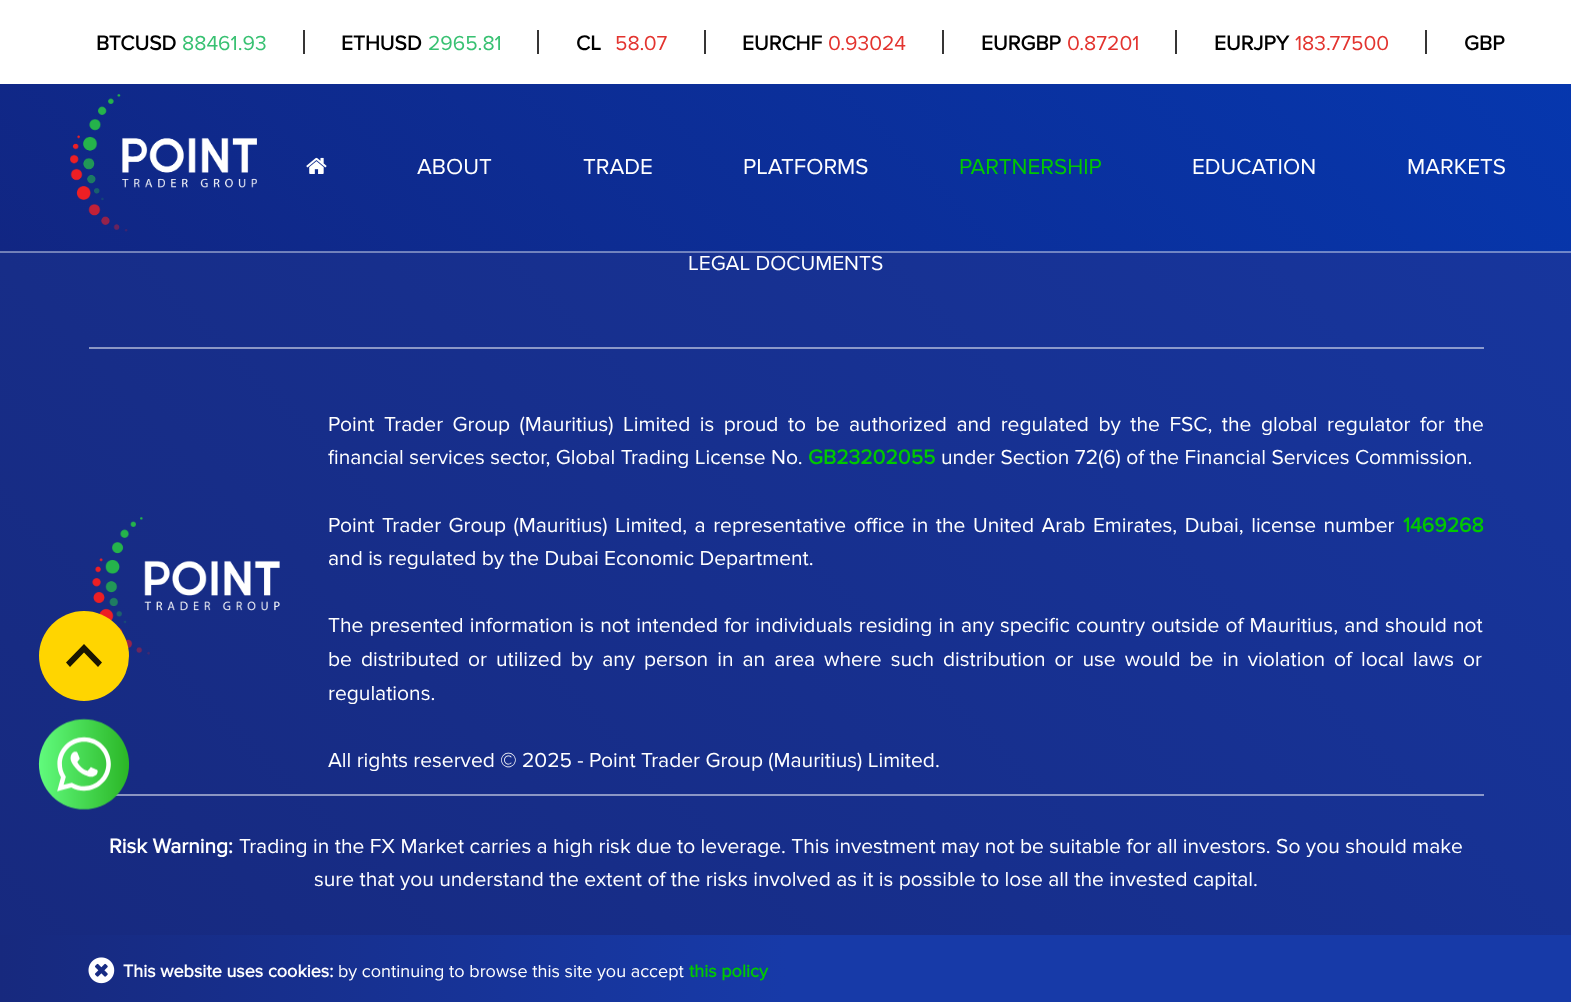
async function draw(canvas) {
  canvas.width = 1571
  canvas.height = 1002
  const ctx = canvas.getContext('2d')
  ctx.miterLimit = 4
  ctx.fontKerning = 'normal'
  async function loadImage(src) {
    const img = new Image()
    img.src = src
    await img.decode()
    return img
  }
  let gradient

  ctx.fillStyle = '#fff'
  ctx.fillRect(0, 0, 1571, 1002)
  ctx.fillStyle = '#363535'
  ctx.fillRect(303, 30, 2, 24)
  ctx.font = 'bold 21px Proxima Nova'
  ctx.fillStyle = '#000'
  ctx.fillText('BTCUSD', 96, 50)
  ctx.font = '21px Proxima Nova'
  ctx.fillStyle = '#38c172'
  ctx.fillText('88461.93', 182, 50)
  ctx.fillStyle = '#363535'
  ctx.fillRect(537, 30, 2, 24)
  ctx.font = 'bold 21px Proxima Nova'
  ctx.fillStyle = '#000'
  ctx.fillText('ETHUSD', 341, 50)
  ctx.font = '21px Proxima Nova'
  ctx.fillStyle = '#38c172'
  ctx.fillText('2965.81', 428, 50)
  ctx.fillStyle = '#363535'
  ctx.fillRect(704, 30, 2, 24)
  ctx.font = 'bold 21px Proxima Nova'
  ctx.fillStyle = '#000'
  ctx.fillText('CL', 576, 50)
  ctx.font = '21px Proxima Nova'
  ctx.fillStyle = '#e3342f'
  ctx.fillText('58.07', 615, 50)
  ctx.fillStyle = '#363535'
  ctx.fillRect(942, 30, 2, 24)
  ctx.font = 'bold 21px Proxima Nova'
  ctx.fillStyle = '#000'
  ctx.fillText('EURCHF', 742, 50)
  ctx.font = '21px Proxima Nova'
  ctx.fillStyle = '#e3342f'
  ctx.fillText('0.93024', 828, 50)
  ctx.fillStyle = '#363535'
  ctx.fillRect(1175, 30, 2, 24)
  ctx.font = 'bold 21px Proxima Nova'
  ctx.fillStyle = '#000'
  ctx.fillText('EURGBP', 981, 50)
  ctx.font = '21px Proxima Nova'
  ctx.fillStyle = '#e3342f'
  ctx.fillText('0.87201', 1067, 50)
  ctx.fillStyle = '#363535'
  ctx.fillRect(1425, 30, 2, 24)
  ctx.font = 'bold 21px Proxima Nova'
  ctx.fillStyle = '#000'
  ctx.fillText('EURJPY', 1214, 50)
  ctx.font = '21px Proxima Nova'
  ctx.fillStyle = '#e3342f'
  ctx.fillText('183.77500', 1295, 50)
  ctx.font = 'bold 21px Proxima Nova'
  ctx.fillStyle = '#000'
  ctx.fillText('GBP', 1464, 50)
  gradient = ctx.createLinearGradient(349, 600, 1223, -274)
  gradient.addColorStop(0, '#112683')
  gradient.addColorStop(1, '#0637ae')
  ctx.fillStyle = gradient
  ctx.fillRect(0, 84, 1571, 167)
  gradient = ctx.createLinearGradient(349, 775, 1223, -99)
  gradient.addColorStop(0, '#707db5')
  gradient.addColorStop(1, '#6a87ce')
  ctx.fillStyle = gradient
  ctx.fillRect(0, 251, 1571, 1)
  ctx.drawImage(await loadImage('image0.png'), 70, 94, 187, 138)
  ctx.drawImage(await loadImage('image1.png'), 306, 157, 21, 17)
  ctx.font = '22.5px Proxima Nova'
  ctx.fillStyle = '#fff'
  ctx.fillText('ABOUT', 417, 174)
  ctx.fillText('TRADE', 583, 174)
  ctx.fillText('PLATFORMS', 743, 174)
  ctx.fillStyle = '#00c800'
  ctx.fillText('PARTNERSHIP', 959, 174)
  ctx.fillStyle = '#fff'
  ctx.fillText('EDUCATION', 1192, 174)
  ctx.fillText('MARKETS', 1407, 174)
  gradient = ctx.createLinearGradient(1.5, 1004, 1571, -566)
  gradient.addColorStop(0, '#17297e')
  gradient.addColorStop(1, '#173aa8')
  ctx.fillStyle = gradient
  ctx.fillRect(0, 253, 1571, 682)
  ctx.drawImage(await loadImage('image2.png'), 92, 517, 188, 138)
  ctx.fillStyle = '#ffd500'
  ctx.beginPath()
  ctx.arc(84, 656, 45, 0, 2 * Math.PI)
  ctx.fill()
  ctx.fillStyle = '#1a1600'
  ctx.beginPath()
  ctx.moveTo(66, 662.5)
  ctx.lineTo(70, 667)
  ctx.lineTo(84, 652.5)
  ctx.lineTo(98, 667)
  ctx.lineTo(102, 662.5)
  ctx.lineTo(84, 644)
  ctx.closePath()
  ctx.fill()
  gradient = ctx.createLinearGradient(1.5, 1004, 1571, -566)
  gradient.addColorStop(0, '#747fb2')
  gradient.addColorStop(1, '#7489cb')
  ctx.fillStyle = gradient
  ctx.fillRect(0, 252, 1571, 1)
  gradient = ctx.createLinearGradient(1.5, 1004, 1571, -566)
  gradient.addColorStop(0, '#8b94bf')
  gradient.addColorStop(1, '#8b9dd4')
  ctx.fillStyle = gradient
  ctx.fillRect(115, 794, 1369, 2)
  ctx.fillRect(89, 347, 1395, 2)
  ctx.font = '21px Proxima Nova'
  ctx.fillStyle = '#fff'
  ctx.fillText('LEGAL DOCUMENTS', 688, 270)
  ctx.wordSpacing = '4.1px'
  ctx.fillText('Point Trader Group (Mauritius) Limited is proud to be authorized and regulated by the FSC, the global regulator for the', 328, 431)
  ctx.wordSpacing = '0px'
  ctx.fillText('financial services sector, Global Trading License No.', 328, 464)
  ctx.font = 'bold 21px Proxima Nova'
  ctx.fillStyle = '#00c800'
  ctx.fillText('GB23202055', 808, 464)
  ctx.font = '21px Proxima Nova'
  ctx.fillStyle = '#fff'
  ctx.fillText('under Section 72(6) of the Financial Services Commission.', 941, 464)
  ctx.wordSpacing = '2.1px'
  ctx.fillText('Point Trader Group (Mauritius) Limited, a representative office in the United Arab Emirates, Dubai, license number', 328, 532)
  ctx.wordSpacing = '0px'
  ctx.font = 'bold 21px Proxima Nova'
  ctx.fillStyle = '#00c800'
  ctx.fillText('1469268', 1403, 532)
  ctx.font = '21px Proxima Nova'
  ctx.fillStyle = '#fff'
  ctx.fillText('and is regulated by the Dubai Economic Department.', 328, 565)
  ctx.wordSpacing = '0.75px'
  ctx.fillText('The presented information is not intended for individuals residing in any specific country outside of Mauritius, and should not', 328, 632)
  ctx.wordSpacing = '3.6px'
  ctx.fillText('be distributed or utilized by any person in an area where such distribution or use would be in violation of local laws or', 328, 666)
  ctx.wordSpacing = '0px'
  ctx.fillText('regulations.', 328, 700)
  ctx.fillText('All rights reserved © 2025 - Point Trader Group (Mauritius) Limited.', 328, 767)
  ctx.font = 'bold 21px Proxima Nova'
  ctx.fillText('Risk Warning:', 109, 853)
  ctx.font = '21px Proxima Nova'
  ctx.fillText('Trading in the FX Market carries a high risk due to leverage. This investment may not be suitable for all investors. So you should make', 239, 853)
  ctx.fillText('sure that you understand the extent of the risks involved as it is possible to lose all the invested capital.', 314, 886)
  gradient = ctx.createLinearGradient(0, 968, 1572, 968)
  gradient.addColorStop(0, '#17297e')
  gradient.addColorStop(0.5, '#173aa8')
  gradient.addColorStop(1, '#173aa8')
  ctx.fillStyle = gradient
  ctx.fillRect(0, 935, 1571, 67)
  ctx.drawImage(await loadImage('image3.png'), 88, 957, 27, 27)
  ctx.font = 'bold 18px Proxima Nova'
  ctx.fillStyle = '#fff'
  ctx.fillText('This website uses cookies:', 123, 977)
  ctx.font = '18px Proxima Nova'
  ctx.fillText('by continuing to browse this site you accept', 338, 977)
  ctx.font = 'bold 18px Proxima Nova'
  ctx.fillStyle = '#00c800'
  ctx.fillText('this policy', 689, 977)
  ctx.drawImage(await loadImage('image4.png'), 38, 718, 92, 92)
}

draw(document.querySelector('canvas'))
